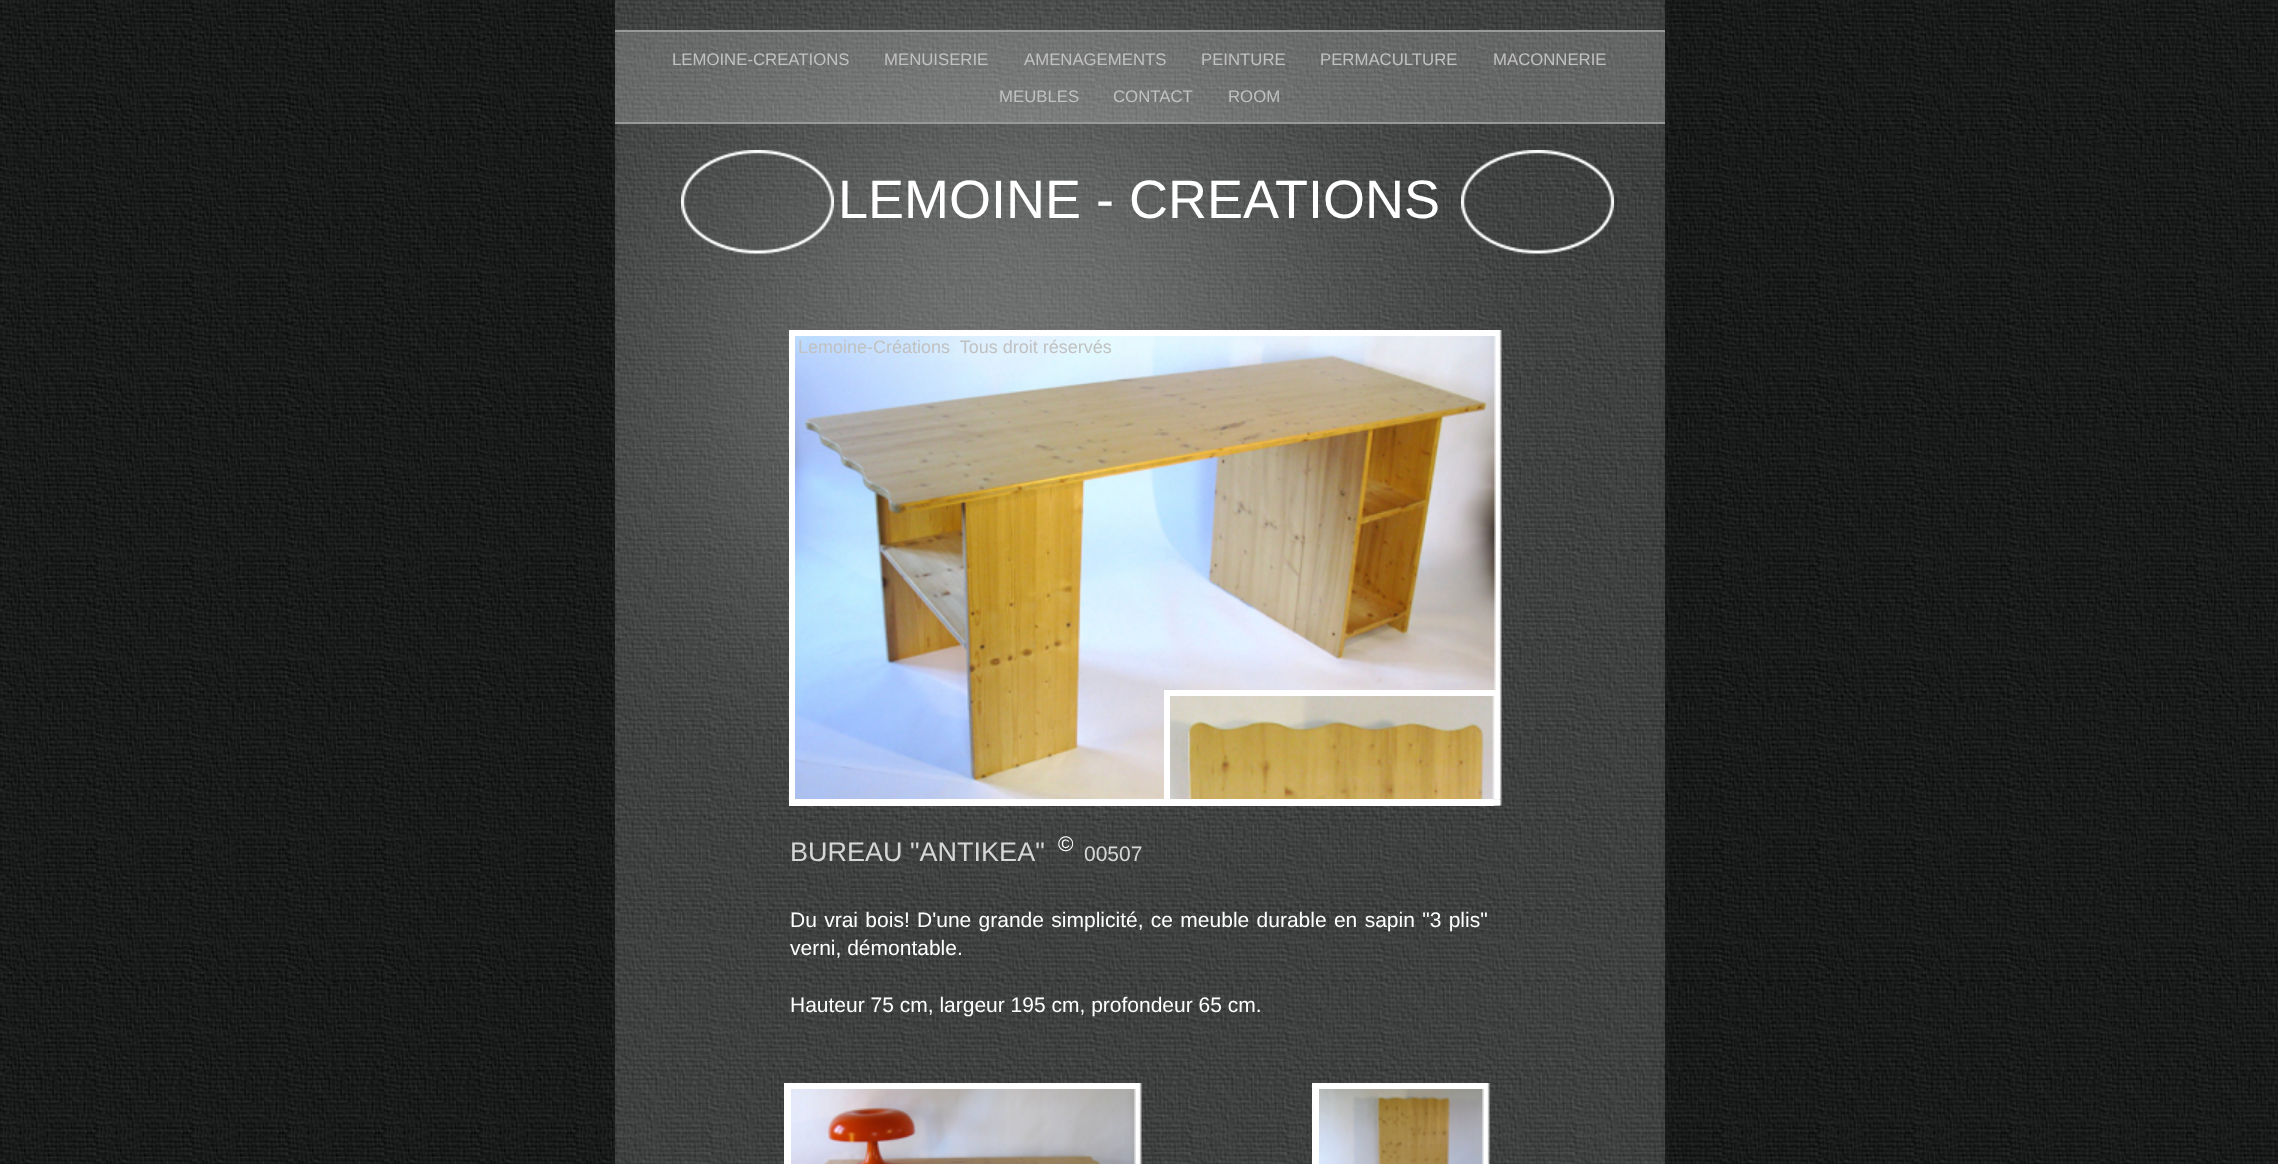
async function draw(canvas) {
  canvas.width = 2278
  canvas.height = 1164
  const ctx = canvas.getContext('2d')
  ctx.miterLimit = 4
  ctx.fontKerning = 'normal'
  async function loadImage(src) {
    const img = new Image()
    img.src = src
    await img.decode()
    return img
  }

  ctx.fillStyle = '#fff'
  ctx.fillRect(0, 0, 2278, 1164)
  ctx.drawImage(await loadImage('image0.png'), 0, 0, 2278, 1164)
  ctx.drawImage(await loadImage('image1.png'), 615, 930, 1050, 234)
  ctx.drawImage(await loadImage('image2.png'), 615, 0, 1050, 930)
  ctx.fillStyle = '#ffffff33'
  ctx.fillRect(615, 32, 1050, 90)
  ctx.fillStyle = '#999'
  ctx.fillRect(615, 30, 1050, 2)
  ctx.fillRect(615, 122, 1050, 2)
  ctx.font = '16.75px Liberation Sans'
  ctx.fillStyle = '#c1c1c1'
  ctx.fillText('LEMOINE-CREATIONS', 672, 65)
  ctx.fillText('MENUISERIE', 884, 65)
  ctx.fillText('AMENAGEMENTS', 1024, 65)
  ctx.fillText('PEINTURE', 1201, 65)
  ctx.fillText('PERMACULTURE', 1320, 65)
  ctx.fillText('MACONNERIE', 1493, 65)
  ctx.fillText('MEUBLES', 999, 102)
  ctx.fillText('CONTACT', 1113, 102)
  ctx.fillText('ROOM', 1228, 102)
  ctx.drawImage(await loadImage('image3.png'), 681, 150, 153, 104)
  ctx.font = '54px Liberation Sans'
  ctx.fillStyle = '#fff'
  ctx.fillText('LEMOINE - CREATIONS', 838, 218)
  ctx.drawImage(await loadImage('image4.png'), 1461, 150, 153, 104)
  ctx.fillRect(789, 330, 6, 476)
  ctx.fillRect(795, 330, 699, 6)
  ctx.drawImage(await loadImage('image5.png'), 1494, 330, 8, 6)
  ctx.drawImage(await loadImage('image6.png'), 795, 336, 704, 464)
  ctx.drawImage(await loadImage('image7.png'), 1494, 336, 8, 464)
  ctx.fillRect(795, 799, 699, 7)
  ctx.drawImage(await loadImage('image8.png'), 1494, 799, 8, 7)
  ctx.font = '18px Liberation Sans'
  ctx.fillStyle = '#c1c1c1'
  ctx.fillText('Lemoine-Créations  Tous droit réservés', 798, 353)
  ctx.fillStyle = '#fff'
  ctx.fillRect(1164, 690, 6, 110)
  ctx.fillRect(1170, 690, 323, 6)
  ctx.drawImage(await loadImage('image9.png'), 1493, 690, 7, 6)
  ctx.drawImage(await loadImage('image10.png'), 1170, 696, 327, 104)
  ctx.drawImage(await loadImage('image11.png'), 1492, 696, 8, 104)
  ctx.drawImage(await loadImage('image12.png'), 1492, 799, 8, 7)
  ctx.fillRect(1170, 799, 323, 1)
  ctx.font = '27px Liberation Sans'
  ctx.fillStyle = '#d6d6d6'
  ctx.fillText('BUREAU "ANTIKEA"', 790, 861)
  ctx.font = '21px Liberation Sans'
  ctx.fillStyle = '#fff'
  ctx.fillText('©', 1058, 851)
  ctx.fillStyle = '#d6d6d6'
  ctx.fillText('00507', 1084, 861)
  ctx.wordSpacing = '1.5px'
  ctx.fillStyle = '#fff'
  ctx.fillText('Du vrai bois! D\'une grande simplicité, ce meuble durable en sapin "3 plis"', 790, 927)
  ctx.wordSpacing = '0px'
  ctx.fillText('verni, démontable.', 790, 955)
  ctx.fillText('Hauteur 75 cm, largeur 195 cm, profondeur 65 cm.', 790, 1012)
  ctx.fillRect(784, 1083, 7, 81)
  ctx.fillRect(791, 1083, 343, 6)
  ctx.drawImage(await loadImage('image13.png'), 1134, 1083, 8, 6)
  ctx.drawImage(await loadImage('image14.png'), 791, 1089, 345, 75)
  ctx.drawImage(await loadImage('image15.png'), 1134, 1089, 8, 75)
  ctx.fillRect(1312, 1083, 7, 81)
  ctx.fillRect(1319, 1083, 163, 6)
  ctx.drawImage(await loadImage('image16.png'), 1482, 1083, 8, 6)
  ctx.drawImage(await loadImage('image17.png'), 1319, 1089, 165, 75)
  ctx.drawImage(await loadImage('image18.png'), 1482, 1089, 8, 75)
}

draw(document.querySelector('canvas'))
